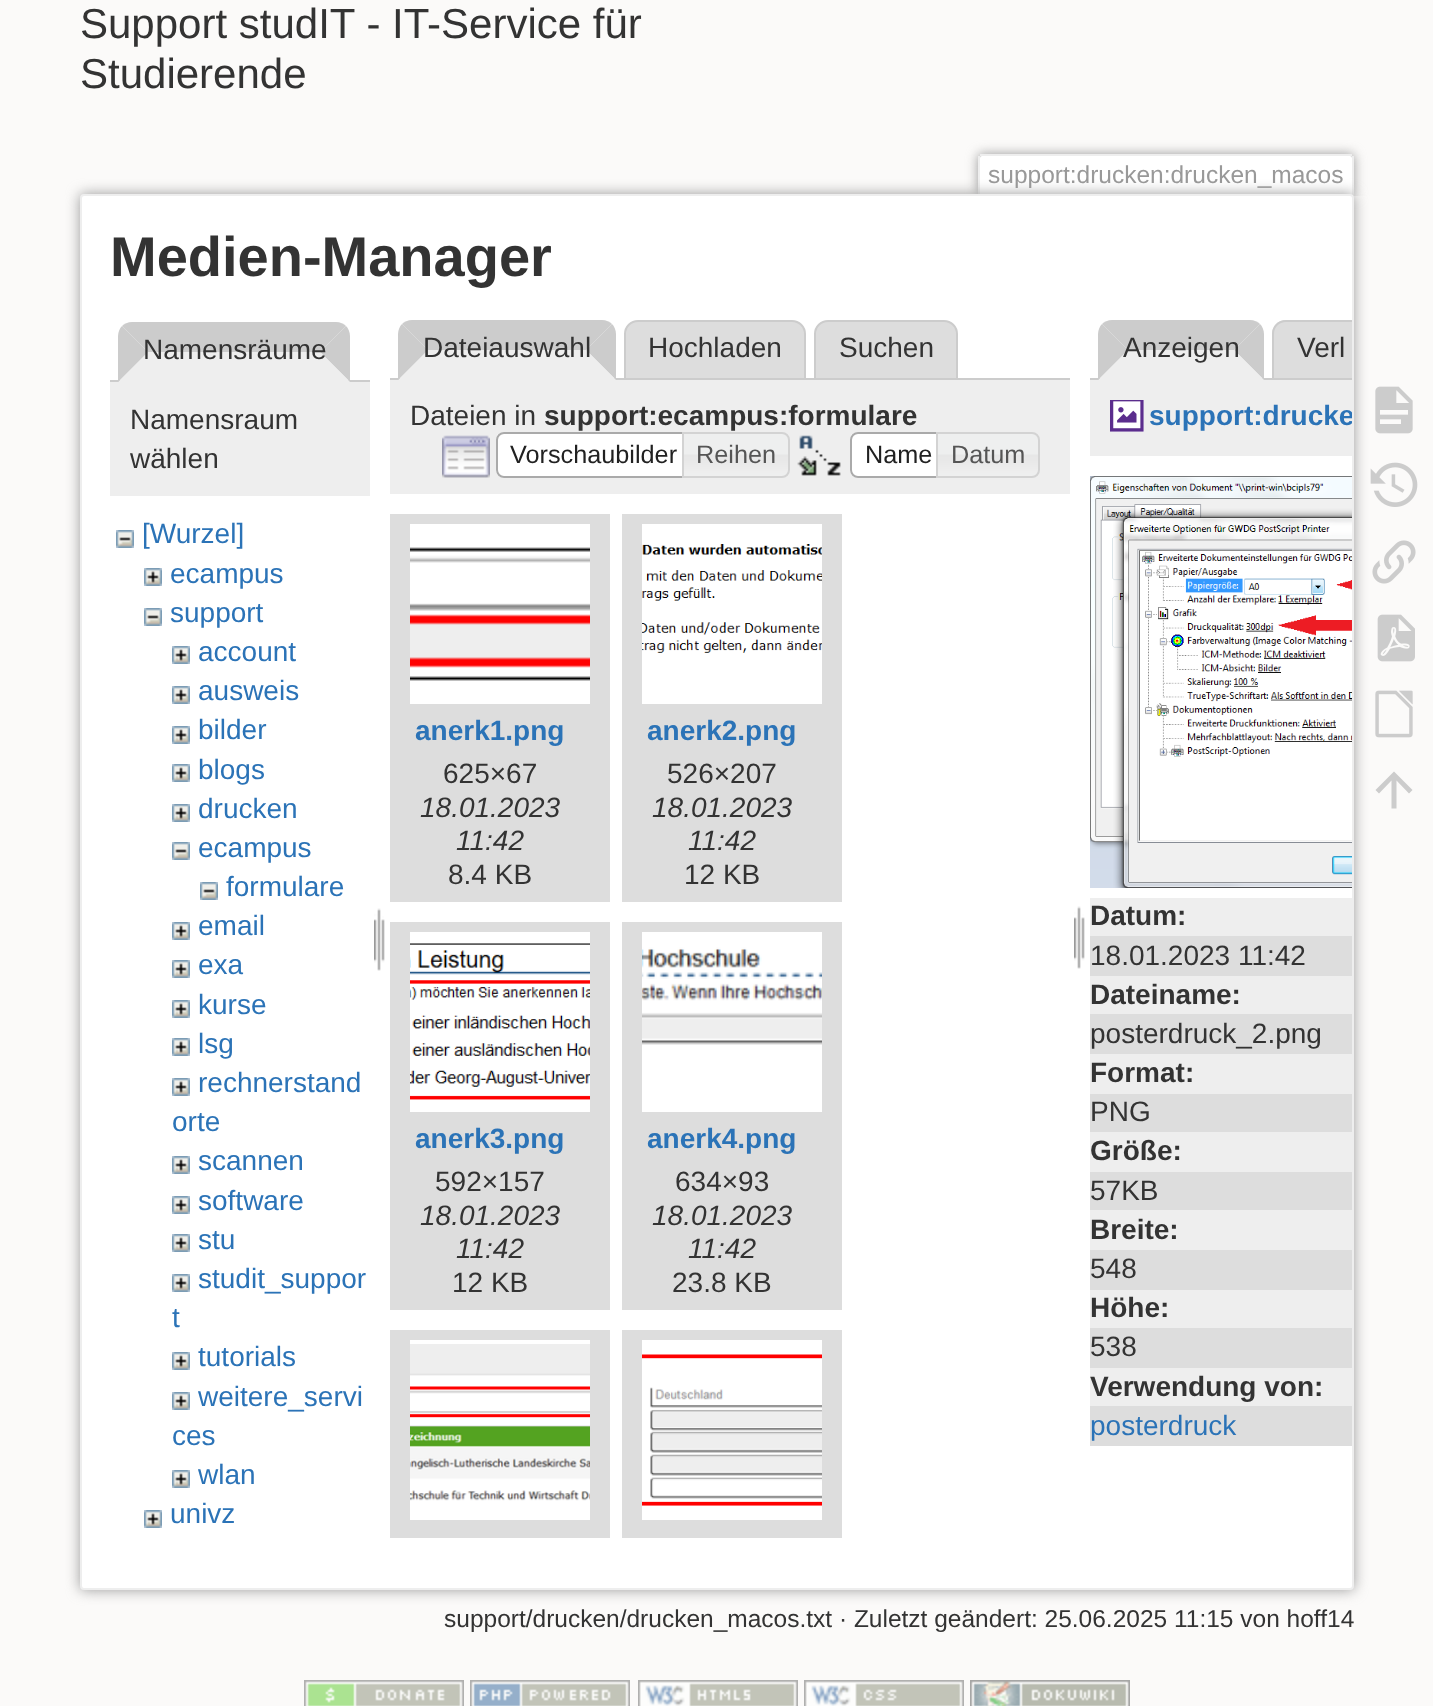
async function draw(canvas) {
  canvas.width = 1433
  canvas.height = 1706
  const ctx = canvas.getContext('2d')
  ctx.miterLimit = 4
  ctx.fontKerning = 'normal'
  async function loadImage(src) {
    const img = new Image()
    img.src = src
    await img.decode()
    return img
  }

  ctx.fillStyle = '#fbfaf9'
  ctx.fillRect(0, 0, 1433, 1706)
  ctx.font = '42px Liberation Sans'
  ctx.fillStyle = '#333'
  ctx.fillText('Support studIT - IT-Service für', 80, 38)
  ctx.fillText('Studierende', 80, 88)
  ctx.save()
  ctx.beginPath()
  ctx.rect(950, 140, 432, 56)
  ctx.clip()
  ctx.fillStyle = '#999'
  ctx.filter = 'blur(6px)'
  ctx.beginPath()
  ctx.roundRect(978, 154, 376, 42, 4)
  ctx.fill()
  ctx.filter = 'none'
  ctx.restore()
  ctx.fillStyle = '#fff'
  ctx.beginPath()
  ctx.roundRect(980, 156, 372, 40, [2, 2, 0, 0])
  ctx.fill()
  ctx.fillStyle = '#eee'
  ctx.fillRect(980, 154, 372, 2)
  ctx.fillRect(1352, 156, 2, 40)
  ctx.fillRect(978, 156, 2, 40)
  ctx.font = '24.5px Liberation Sans'
  ctx.fillStyle = '#999'
  ctx.fillText('support:drucken:drucken_macos', 988, 183)
  ctx.filter = 'blur(7px)'
  ctx.beginPath()
  ctx.roundRect(80, 194, 1274, 1396, 4)
  ctx.fill()
  ctx.filter = 'none'
  ctx.fillStyle = '#fff'
  ctx.beginPath()
  ctx.roundRect(81, 195, 1272, 1394, 3)
  ctx.fill()
  ctx.strokeStyle = '#eee'
  ctx.lineWidth = 2
  ctx.stroke()
  ctx.font = 'bold 56px Liberation Sans'
  ctx.fillStyle = '#333'
  ctx.fillText('Medien-Manager', 110, 276)
  ctx.fillStyle = '#ccc'
  ctx.beginPath()
  ctx.moveTo(132, 322)
  ctx.lineTo(336, 322)
  ctx.bezierCurveTo(340, 322, 344, 324, 346, 326)
  ctx.lineTo(320, 352)
  ctx.lineTo(148, 352)
  ctx.lineTo(122, 326)
  ctx.bezierCurveTo(124, 324, 128, 322, 132, 322)
  ctx.closePath()
  ctx.fill()
  ctx.fillRect(110, 380, 260, 2)
  ctx.beginPath()
  ctx.moveTo(346, 326)
  ctx.lineTo(320, 352)
  ctx.lineTo(350, 382)
  ctx.lineTo(350, 336)
  ctx.bezierCurveTo(350, 332, 348, 328, 346, 326)
  ctx.closePath()
  ctx.fill()
  ctx.fillStyle = '#eee'
  ctx.beginPath()
  ctx.moveTo(350, 382)
  ctx.lineTo(320, 352)
  ctx.lineTo(148, 352)
  ctx.lineTo(118, 382)
  ctx.closePath()
  ctx.fill()
  ctx.fillStyle = '#ccc'
  ctx.beginPath()
  ctx.moveTo(118, 382)
  ctx.lineTo(118, 336)
  ctx.bezierCurveTo(118, 332, 120, 328, 122, 326)
  ctx.lineTo(148, 352)
  ctx.closePath()
  ctx.fill()
  ctx.font = '28px Liberation Sans'
  ctx.fillStyle = '#333'
  ctx.fillText('Namensräume', 143, 359)
  ctx.fillStyle = '#eee'
  ctx.fillRect(110, 382, 260, 114)
  ctx.fillStyle = '#333'
  ctx.fillText('Namensraum', 130, 429)
  ctx.fillText('wählen', 130, 468)
  ctx.drawImage(await loadImage('image0.png'), 116, 530, 18, 18)
  ctx.fillStyle = '#2b73b7'
  ctx.fillText('[Wurzel]', 142, 543)
  ctx.drawImage(await loadImage('image1.png'), 144, 568, 18, 18)
  ctx.fillText('ecampus', 170, 583)
  ctx.drawImage(await loadImage('image0.png'), 144, 608, 18, 18)
  ctx.fillText('support', 170, 622)
  ctx.drawImage(await loadImage('image1.png'), 172, 646, 18, 18)
  ctx.fillText('account', 198, 661)
  ctx.drawImage(await loadImage('image1.png'), 172, 686, 18, 18)
  ctx.fillText('ausweis', 198, 700)
  ctx.drawImage(await loadImage('image1.png'), 172, 726, 18, 18)
  ctx.fillText('bilder', 198, 739)
  ctx.drawImage(await loadImage('image1.png'), 172, 764, 18, 18)
  ctx.fillText('blogs', 198, 779)
  ctx.drawImage(await loadImage('image1.png'), 172, 804, 18, 18)
  ctx.fillText('drucken', 198, 818)
  ctx.drawImage(await loadImage('image0.png'), 172, 842, 18, 18)
  ctx.fillText('ecampus', 198, 857)
  ctx.drawImage(await loadImage('image0.png'), 200, 882, 18, 18)
  ctx.fillText('formulare', 226, 896)
  ctx.drawImage(await loadImage('image1.png'), 172, 922, 18, 18)
  ctx.fillText('email', 198, 935)
  ctx.drawImage(await loadImage('image1.png'), 172, 960, 18, 18)
  ctx.fillText('exa', 198, 974)
  ctx.drawImage(await loadImage('image1.png'), 172, 1000, 18, 18)
  ctx.fillText('kurse', 198, 1014)
  ctx.drawImage(await loadImage('image1.png'), 172, 1038, 18, 18)
  ctx.fillText('lsg', 198, 1053)
  ctx.drawImage(await loadImage('image1.png'), 172, 1078, 18, 18)
  ctx.fillText('rechnerstand', 198, 1092)
  ctx.fillText('orte', 172, 1131)
  ctx.drawImage(await loadImage('image1.png'), 172, 1156, 18, 18)
  ctx.fillText('scannen', 198, 1170)
  ctx.drawImage(await loadImage('image1.png'), 172, 1196, 18, 18)
  ctx.fillText('software', 198, 1210)
  ctx.drawImage(await loadImage('image1.png'), 172, 1234, 18, 18)
  ctx.fillText('stu', 198, 1249)
  ctx.drawImage(await loadImage('image1.png'), 172, 1274, 18, 18)
  ctx.fillText('studit_suppor', 198, 1288)
  ctx.fillText('t', 172, 1327)
  ctx.drawImage(await loadImage('image1.png'), 172, 1352, 18, 18)
  ctx.fillText('tutorials', 198, 1366)
  ctx.drawImage(await loadImage('image1.png'), 172, 1392, 18, 18)
  ctx.fillText('weitere_servi', 198, 1406)
  ctx.fillText('ces', 172, 1445)
  ctx.drawImage(await loadImage('image1.png'), 172, 1470, 18, 18)
  ctx.fillText('wlan', 198, 1484)
  ctx.drawImage(await loadImage('image1.png'), 144, 1510, 18, 18)
  ctx.fillText('univz', 170, 1523)
  ctx.drawImage(await loadImage('image2.png'), 374, 908, 11, 63)
  ctx.fillStyle = '#ccc'
  ctx.beginPath()
  ctx.moveTo(412, 320)
  ctx.lineTo(602, 320)
  ctx.bezierCurveTo(606, 320, 610, 322, 612, 324)
  ctx.lineTo(586, 350)
  ctx.lineTo(428, 350)
  ctx.lineTo(402, 324)
  ctx.bezierCurveTo(404, 322, 408, 320, 412, 320)
  ctx.closePath()
  ctx.fill()
  ctx.fillStyle = '#ddd'
  ctx.beginPath()
  ctx.roundRect(625, 321, 180, 58, [13, 13, 0, 0])
  ctx.fill()
  ctx.strokeStyle = '#ccc'
  ctx.stroke()
  ctx.beginPath()
  ctx.roundRect(815, 321, 142, 58, [13, 13, 0, 0])
  ctx.fill()
  ctx.stroke()
  ctx.fillStyle = '#ccc'
  ctx.fillRect(390, 378, 680, 2)
  ctx.beginPath()
  ctx.moveTo(612, 324)
  ctx.lineTo(586, 350)
  ctx.lineTo(616, 380)
  ctx.lineTo(616, 334)
  ctx.bezierCurveTo(616, 330, 614, 326, 612, 324)
  ctx.closePath()
  ctx.fill()
  ctx.fillStyle = '#eee'
  ctx.beginPath()
  ctx.moveTo(616, 380)
  ctx.lineTo(586, 350)
  ctx.lineTo(428, 350)
  ctx.lineTo(398, 380)
  ctx.closePath()
  ctx.fill()
  ctx.fillStyle = '#ccc'
  ctx.beginPath()
  ctx.moveTo(398, 380)
  ctx.lineTo(398, 334)
  ctx.bezierCurveTo(398, 330, 400, 326, 402, 324)
  ctx.lineTo(428, 350)
  ctx.closePath()
  ctx.fill()
  ctx.fillStyle = '#333'
  ctx.fillText('Dateiauswahl', 423, 357)
  ctx.fillText('Hochladen', 648, 357)
  ctx.fillText('Suchen', 839, 357)
  ctx.fillStyle = '#eee'
  ctx.fillRect(390, 380, 680, 114)
  ctx.fillStyle = '#333'
  ctx.fillText('Dateien in', 410, 425)
  ctx.font = 'bold 28px Liberation Sans'
  ctx.fillText('support:ecampus:formulare', 544, 425)
  ctx.drawImage(await loadImage('image3.png'), 442, 435, 48, 43)
  ctx.fillStyle = '#fff'
  ctx.beginPath()
  ctx.roundRect(496, 432, 196, 46, [8, 0, 0, 8])
  ctx.fill()
  ctx.drawImage(await loadImage('image4.png'), 496, 432, 6, 46)
  ctx.beginPath()
  ctx.roundRect(497, 433, 194, 44, [7, 0, 0, 7])
  ctx.strokeStyle = '#aaa'
  ctx.stroke()
  ctx.font = '25.25px Liberation Sans'
  ctx.fillStyle = '#212121'
  ctx.fillText('Vorschaubilder', 510, 463)
  ctx.drawImage(await loadImage('image5.png'), 684, 432, 106, 46)
  ctx.beginPath()
  ctx.roundRect(683, 433, 106, 44, [0, 7, 7, 0])
  ctx.strokeStyle = '#d3d3d3'
  ctx.stroke()
  ctx.fillStyle = '#555'
  ctx.fillText('Reihen', 696, 463)
  ctx.drawImage(await loadImage('image6.png'), 797, 435, 44, 41)
  ctx.fillStyle = '#fff'
  ctx.beginPath()
  ctx.roundRect(850, 432, 96, 46, [8, 0, 0, 8])
  ctx.fill()
  ctx.drawImage(await loadImage('image4.png'), 850, 432, 6, 46)
  ctx.beginPath()
  ctx.roundRect(851, 433, 94, 44, [7, 0, 0, 7])
  ctx.strokeStyle = '#aaa'
  ctx.stroke()
  ctx.fillStyle = '#212121'
  ctx.fillText('Name', 865, 463)
  ctx.drawImage(await loadImage('image7.png'), 938, 432, 102, 46)
  ctx.beginPath()
  ctx.roundRect(937, 433, 102, 44, [0, 7, 7, 0])
  ctx.strokeStyle = '#d3d3d3'
  ctx.stroke()
  ctx.fillStyle = '#555'
  ctx.fillText('Datum', 951, 463)
  ctx.fillStyle = '#ddd'
  ctx.fillRect(390, 514, 220, 388)
  ctx.drawImage(await loadImage('image8.png'), 410, 524, 180, 180)
  ctx.font = 'bold 28px Liberation Sans'
  ctx.fillStyle = '#2b73b7'
  ctx.fillText('anerk1.png', 415, 740)
  ctx.font = '28px Liberation Sans'
  ctx.fillStyle = '#333'
  ctx.fillText('625×67', 443, 783)
  ctx.font = 'italic 28px Liberation Sans'
  ctx.fillText('18.01.2023', 420, 817)
  ctx.fillText('11:42', 456, 850)
  ctx.font = '28px Liberation Sans'
  ctx.fillText('8.4 KB', 448, 884)
  ctx.fillStyle = '#ddd'
  ctx.fillRect(622, 514, 220, 388)
  ctx.drawImage(await loadImage('image9.png'), 642, 524, 180, 180)
  ctx.font = 'bold 28px Liberation Sans'
  ctx.fillStyle = '#2b73b7'
  ctx.fillText('anerk2.png', 647, 740)
  ctx.font = '28px Liberation Sans'
  ctx.fillStyle = '#333'
  ctx.fillText('526×207', 667, 783)
  ctx.font = 'italic 28px Liberation Sans'
  ctx.fillText('18.01.2023', 652, 817)
  ctx.fillText('11:42', 688, 850)
  ctx.font = '28px Liberation Sans'
  ctx.fillText('12 KB', 684, 884)
  ctx.fillStyle = '#ddd'
  ctx.fillRect(390, 922, 220, 388)
  ctx.drawImage(await loadImage('image10.png'), 410, 932, 180, 180)
  ctx.font = 'bold 28px Liberation Sans'
  ctx.fillStyle = '#2b73b7'
  ctx.fillText('anerk3.png', 415, 1148)
  ctx.font = '28px Liberation Sans'
  ctx.fillStyle = '#333'
  ctx.fillText('592×157', 435, 1191)
  ctx.font = 'italic 28px Liberation Sans'
  ctx.fillText('18.01.2023', 420, 1225)
  ctx.fillText('11:42', 456, 1258)
  ctx.font = '28px Liberation Sans'
  ctx.fillText('12 KB', 452, 1292)
  ctx.fillStyle = '#ddd'
  ctx.fillRect(622, 922, 220, 388)
  ctx.drawImage(await loadImage('image11.png'), 642, 932, 180, 180)
  ctx.font = 'bold 28px Liberation Sans'
  ctx.fillStyle = '#2b73b7'
  ctx.fillText('anerk4.png', 647, 1148)
  ctx.font = '28px Liberation Sans'
  ctx.fillStyle = '#333'
  ctx.fillText('634×93', 675, 1191)
  ctx.font = 'italic 28px Liberation Sans'
  ctx.fillText('18.01.2023', 652, 1225)
  ctx.fillText('11:42', 688, 1258)
  ctx.font = '28px Liberation Sans'
  ctx.fillText('23.8 KB', 672, 1292)
  ctx.fillStyle = '#ddd'
  ctx.fillRect(390, 1330, 220, 208)
  ctx.drawImage(await loadImage('image12.png'), 410, 1340, 180, 180)
  ctx.fillRect(622, 1330, 220, 208)
  ctx.drawImage(await loadImage('image13.png'), 642, 1340, 180, 180)
  ctx.drawImage(await loadImage('image2.png'), 1074, 906, 11, 63)
  ctx.fillStyle = '#ccc'
  ctx.beginPath()
  ctx.moveTo(1112, 320)
  ctx.lineTo(1250, 320)
  ctx.bezierCurveTo(1254, 320, 1258, 322, 1260, 324)
  ctx.lineTo(1234, 350)
  ctx.lineTo(1128, 350)
  ctx.lineTo(1102, 324)
  ctx.bezierCurveTo(1104, 322, 1108, 320, 1112, 320)
  ctx.closePath()
  ctx.fill()
  ctx.fillRect(1090, 378, 182, 2)
  ctx.beginPath()
  ctx.moveTo(1260, 324)
  ctx.lineTo(1234, 350)
  ctx.lineTo(1264, 380)
  ctx.lineTo(1264, 334)
  ctx.bezierCurveTo(1264, 330, 1262, 326, 1260, 324)
  ctx.closePath()
  ctx.fill()
  ctx.fillStyle = '#eee'
  ctx.beginPath()
  ctx.moveTo(1264, 380)
  ctx.lineTo(1234, 350)
  ctx.lineTo(1128, 350)
  ctx.lineTo(1098, 380)
  ctx.closePath()
  ctx.fill()
  ctx.fillStyle = '#ccc'
  ctx.beginPath()
  ctx.moveTo(1098, 380)
  ctx.lineTo(1098, 334)
  ctx.bezierCurveTo(1098, 330, 1100, 326, 1102, 324)
  ctx.lineTo(1128, 350)
  ctx.closePath()
  ctx.fill()
  ctx.fillStyle = '#333'
  ctx.fillText('Anzeigen', 1123, 357)
  ctx.fillStyle = '#ddd'
  ctx.beginPath()
  ctx.roundRect(1272, 320, 80, 60, [14, 0, 0, 0])
  ctx.fill()
  ctx.fillStyle = '#ccc'
  ctx.beginPath()
  ctx.moveTo(1286, 320)
  ctx.bezierCurveTo(1278, 320, 1272, 326, 1272, 334)
  ctx.lineTo(1272, 380)
  ctx.lineTo(1352, 380)
  ctx.lineTo(1352, 378)
  ctx.lineTo(1274, 378)
  ctx.lineTo(1274, 334)
  ctx.bezierCurveTo(1274, 327, 1279, 322, 1286, 322)
  ctx.lineTo(1352, 322)
  ctx.lineTo(1352, 320)
  ctx.closePath()
  ctx.fill()
  ctx.fillStyle = '#333'
  ctx.fillText('Verl', 1297, 357)
  ctx.fillStyle = '#eee'
  ctx.fillRect(1090, 380, 262, 76)
  ctx.drawImage(await loadImage('image14.png'), 1110, 400, 34, 32)
  ctx.save()
  ctx.beginPath()
  ctx.roundRect(82, 196, 1270, 1392, 2)
  ctx.clip()
  ctx.font = 'bold 28px Liberation Sans'
  ctx.fillStyle = '#2b73b7'
  ctx.fillText('support:drucke', 1149, 425)
  ctx.restore()
  ctx.drawImage(await loadImage('image15.png'), 1090, 476, 262, 412)
  ctx.fillRect(1090, 898, 262, 38)
  ctx.font = 'bold 28px Liberation Sans'
  ctx.fillStyle = '#333'
  ctx.fillText('Datum:', 1090, 925)
  ctx.fillStyle = '#ddd'
  ctx.fillRect(1090, 936, 262, 40)
  ctx.font = '28px Liberation Sans'
  ctx.fillStyle = '#333'
  ctx.fillText('18.01.2023 11:42', 1090, 965)
  ctx.fillStyle = '#eee'
  ctx.fillRect(1090, 976, 262, 38)
  ctx.font = 'bold 28px Liberation Sans'
  ctx.fillStyle = '#333'
  ctx.fillText('Dateiname:', 1090, 1004)
  ctx.fillStyle = '#ddd'
  ctx.fillRect(1090, 1014, 262, 40)
  ctx.font = '28px Liberation Sans'
  ctx.fillStyle = '#333'
  ctx.fillText('posterdruck_2.png', 1090, 1043)
  ctx.fillStyle = '#eee'
  ctx.fillRect(1090, 1054, 262, 40)
  ctx.font = 'bold 28px Liberation Sans'
  ctx.fillStyle = '#333'
  ctx.fillText('Format:', 1090, 1082)
  ctx.fillStyle = '#ddd'
  ctx.fillRect(1090, 1094, 262, 38)
  ctx.font = '28px Liberation Sans'
  ctx.fillStyle = '#333'
  ctx.fillText('PNG', 1090, 1121)
  ctx.fillStyle = '#eee'
  ctx.fillRect(1090, 1132, 262, 40)
  ctx.font = 'bold 28px Liberation Sans'
  ctx.fillStyle = '#333'
  ctx.fillText('Größe:', 1090, 1160)
  ctx.fillStyle = '#ddd'
  ctx.fillRect(1090, 1172, 262, 38)
  ctx.font = '28px Liberation Sans'
  ctx.fillStyle = '#333'
  ctx.fillText('57KB', 1090, 1200)
  ctx.fillStyle = '#eee'
  ctx.fillRect(1090, 1210, 262, 40)
  ctx.font = 'bold 28px Liberation Sans'
  ctx.fillStyle = '#333'
  ctx.fillText('Breite:', 1090, 1239)
  ctx.fillStyle = '#ddd'
  ctx.fillRect(1090, 1250, 262, 40)
  ctx.font = '28px Liberation Sans'
  ctx.fillStyle = '#333'
  ctx.fillText('548', 1090, 1278)
  ctx.fillStyle = '#eee'
  ctx.fillRect(1090, 1290, 262, 38)
  ctx.font = 'bold 28px Liberation Sans'
  ctx.fillStyle = '#333'
  ctx.fillText('Höhe:', 1090, 1317)
  ctx.fillStyle = '#ddd'
  ctx.fillRect(1090, 1328, 262, 40)
  ctx.font = '28px Liberation Sans'
  ctx.fillStyle = '#333'
  ctx.fillText('538', 1090, 1356)
  ctx.fillStyle = '#eee'
  ctx.fillRect(1090, 1368, 262, 38)
  ctx.font = 'bold 28px Liberation Sans'
  ctx.fillStyle = '#333'
  ctx.fillText('Verwendung von:', 1090, 1396)
  ctx.fillStyle = '#ddd'
  ctx.fillRect(1090, 1406, 262, 40)
  ctx.font = '28px Liberation Sans'
  ctx.fillStyle = '#2b73b7'
  ctx.fillText('posterdruck', 1090, 1435)
  ctx.font = '24.5px Liberation Sans'
  ctx.fillStyle = '#333'
  ctx.fillText('support/drucken/drucken_macos.txt · Zuletzt geändert: 25.06.2025 11:15 von hoff14', 444, 1627)
  ctx.drawImage(await loadImage('image16.png'), 1375, 386, 38, 48)
  ctx.drawImage(await loadImage('image17.png'), 1370, 462, 48, 45)
  ctx.drawImage(await loadImage('image18.png'), 1372, 540, 44, 44)
  ctx.drawImage(await loadImage('image19.png'), 1377, 614, 38, 48)
  ctx.drawImage(await loadImage('image20.png'), 1375, 690, 38, 48)
  ctx.fillStyle = '#ccc'
  ctx.beginPath()
  ctx.moveTo(1396.5, 808.5)
  ctx.lineTo(1391.5, 808.5)
  ctx.lineTo(1391.5, 780.5)
  ctx.lineTo(1379, 793.5)
  ctx.lineTo(1375.5, 790)
  ctx.lineTo(1394, 771.5)
  ctx.lineTo(1412.5, 790)
  ctx.lineTo(1409, 793.5)
  ctx.lineTo(1396.5, 780.5)
  ctx.closePath()
  ctx.fill()
  ctx.drawImage(await loadImage('image21.png'), 304, 1680, 160, 26)
  ctx.drawImage(await loadImage('image22.png'), 470, 1680, 160, 26)
  ctx.drawImage(await loadImage('image23.png'), 638, 1680, 160, 26)
  ctx.drawImage(await loadImage('image24.png'), 804, 1680, 160, 26)
  ctx.drawImage(await loadImage('image25.png'), 970, 1680, 160, 26)
}

draw(document.querySelector('canvas'))
